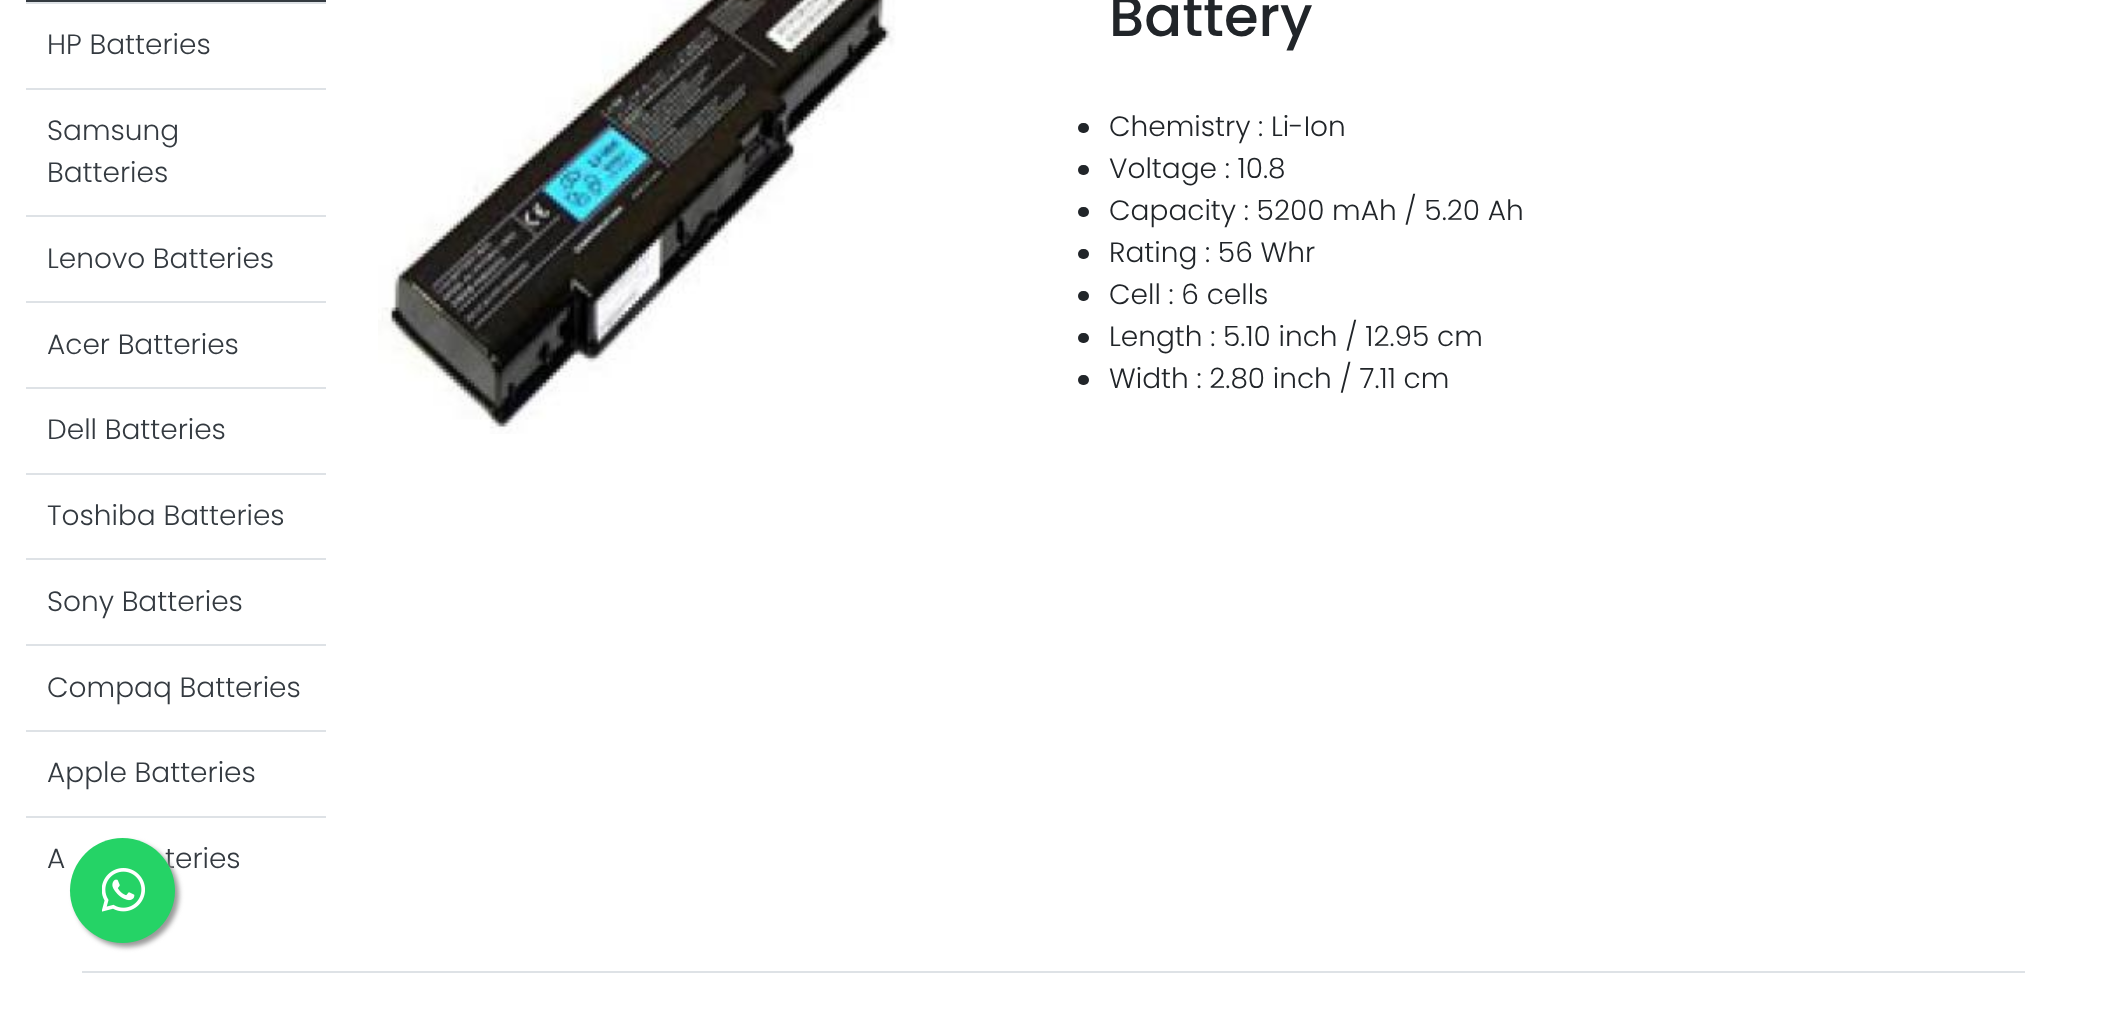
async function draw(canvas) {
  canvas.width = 2106
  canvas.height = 1012
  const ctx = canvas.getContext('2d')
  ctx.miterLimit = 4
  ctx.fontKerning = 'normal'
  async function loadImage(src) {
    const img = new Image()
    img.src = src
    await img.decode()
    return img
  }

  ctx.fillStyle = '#fff'
  ctx.fillRect(0, 0, 2106, 1012)
  ctx.fillStyle = '#343a40'
  ctx.fillRect(26, 0, 300, 2)
  ctx.fillStyle = '#dee2e6'
  ctx.fillRect(26, 2, 300, 2)
  ctx.font = '300 28px Poppins'
  ctx.fillStyle = '#343a40'
  ctx.fillText('HP Batteries', 47, 54)
  ctx.fillStyle = '#dee2e6'
  ctx.fillRect(26, 88, 300, 2)
  ctx.fillStyle = '#343a40'
  ctx.fillText('Samsung', 47, 140)
  ctx.fillText('Batteries', 47, 182)
  ctx.fillStyle = '#dee2e6'
  ctx.fillRect(26, 215, 300, 2)
  ctx.fillStyle = '#343a40'
  ctx.fillText('Lenovo Batteries', 47, 268)
  ctx.fillStyle = '#dee2e6'
  ctx.fillRect(26, 301, 300, 2)
  ctx.fillStyle = '#343a40'
  ctx.fillText('Acer Batteries', 47, 354)
  ctx.fillStyle = '#dee2e6'
  ctx.fillRect(26, 387, 300, 2)
  ctx.fillStyle = '#343a40'
  ctx.fillText('Dell Batteries', 47, 439)
  ctx.fillStyle = '#dee2e6'
  ctx.fillRect(26, 473, 300, 2)
  ctx.fillStyle = '#343a40'
  ctx.fillText('Toshiba Batteries', 47, 525)
  ctx.fillStyle = '#dee2e6'
  ctx.fillRect(26, 558, 300, 2)
  ctx.fillStyle = '#343a40'
  ctx.fillText('Sony Batteries', 47, 611)
  ctx.fillStyle = '#dee2e6'
  ctx.fillRect(26, 644, 300, 2)
  ctx.fillStyle = '#343a40'
  ctx.fillText('Compaq Batteries', 47, 697)
  ctx.fillStyle = '#dee2e6'
  ctx.fillRect(26, 730, 300, 2)
  ctx.fillStyle = '#343a40'
  ctx.fillText('Apple Batteries', 47, 782)
  ctx.fillStyle = '#dee2e6'
  ctx.fillRect(26, 816, 300, 2)
  ctx.fillStyle = '#343a40'
  ctx.fillText('A', 47, 868)
  ctx.fillText('teries', 165, 868)
  ctx.drawImage(await loadImage('image0.png'), 378, 0, 518, 434)
  ctx.font = '500 56px Poppins'
  ctx.fillStyle = '#212529'
  ctx.fillText('Battery', 1109, 36)
  ctx.beginPath()
  ctx.roundRect(1078, 123, 11, 10, 5)
  ctx.fill()
  ctx.font = '300 28px Poppins'
  ctx.fillText('Chemistry : Li-Ion', 1109, 136)
  ctx.beginPath()
  ctx.roundRect(1078, 165, 11, 10, 5)
  ctx.fill()
  ctx.fillText('Voltage : 10.8', 1109, 178)
  ctx.beginPath()
  ctx.roundRect(1078, 207, 11, 10, 5)
  ctx.fill()
  ctx.fillText('Capacity : 5200 mAh / 5.20 Ah', 1109, 220)
  ctx.beginPath()
  ctx.roundRect(1078, 249, 11, 10, 5)
  ctx.fill()
  ctx.fillText('Rating : 56 Whr', 1109, 262)
  ctx.beginPath()
  ctx.roundRect(1078, 291, 11, 10, 5)
  ctx.fill()
  ctx.fillText('Cell : 6 cells', 1109, 304)
  ctx.beginPath()
  ctx.roundRect(1078, 333, 11, 10, 5)
  ctx.fill()
  ctx.fillText('Length : 5.10 inch / 12.95 cm', 1109, 346)
  ctx.beginPath()
  ctx.roundRect(1078, 375, 11, 10, 5)
  ctx.fill()
  ctx.fillText('Width : 2.80 inch / 7.11 cm', 1109, 388)
  ctx.fillStyle = '#dee2e6'
  ctx.fillRect(82, 971, 1943, 2)
  ctx.fillStyle = '#999'
  ctx.filter = 'blur(2.5px)'
  ctx.beginPath()
  ctx.roundRect(74, 842, 105, 105, 52.5)
  ctx.fill()
  ctx.filter = 'none'
  ctx.fillStyle = '#25d366'
  ctx.beginPath()
  ctx.arc(122.5, 890.5, 52.5, 0, 2 * Math.PI)
  ctx.fill()
  ctx.drawImage(await loadImage('image1.png'), 102, 868, 43, 44)
}

draw(document.querySelector('canvas'))
